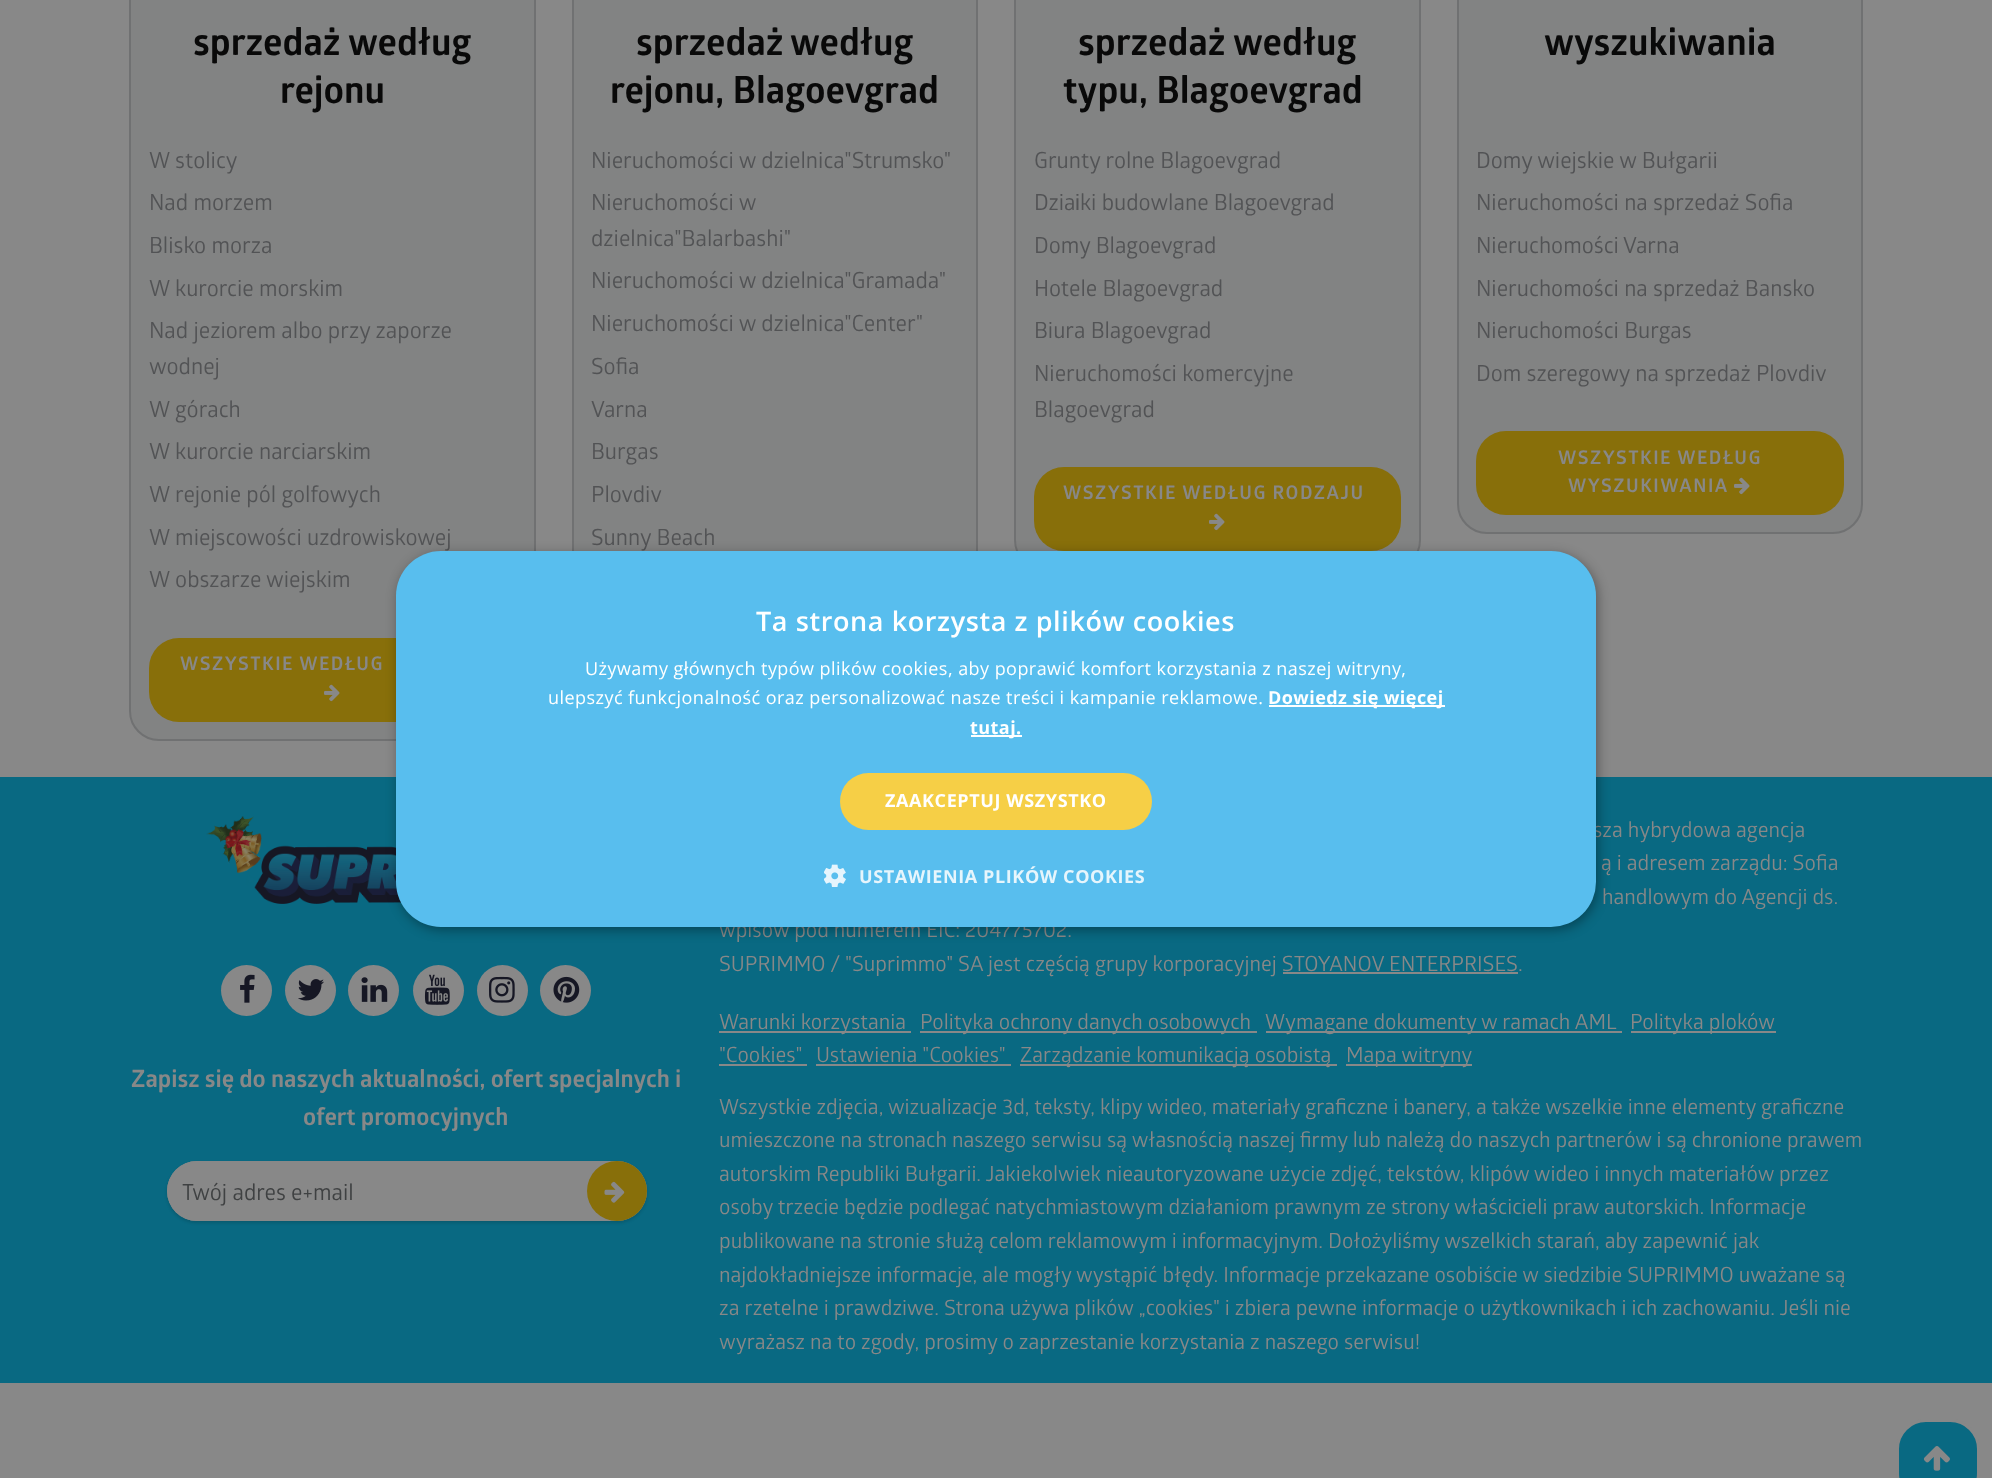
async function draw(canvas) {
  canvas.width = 1992
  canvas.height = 1478
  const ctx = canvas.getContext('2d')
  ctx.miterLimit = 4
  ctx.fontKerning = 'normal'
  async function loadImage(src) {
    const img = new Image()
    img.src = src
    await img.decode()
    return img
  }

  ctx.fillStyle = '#888'
  ctx.fillRect(0, 0, 1992, 1478)
  ctx.fillStyle = '#828383'
  ctx.beginPath()
  ctx.roundRect(130, -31, 405, 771, 29)
  ctx.fill()
  ctx.strokeStyle = '#707172'
  ctx.lineWidth = 2
  ctx.stroke()
  ctx.font = 'bold 37.5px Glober'
  ctx.fillStyle = '#090909'
  ctx.fillText('sprzedaż', 193, 55)
  ctx.fillText('według', 348, 55)
  ctx.fillText('rejonu', 280, 103)
  ctx.font = '22.25px Glober'
  ctx.fillStyle = '#525355'
  ctx.fillText('W stolicy', 149, 168)
  ctx.fillText('Nad morzem', 149, 210)
  ctx.fillText('Blisko morza', 149, 253)
  ctx.fillText('W kurorcie morskim', 149, 296)
  ctx.fillText('Nad jeziorem albo przy zaporze', 149, 338)
  ctx.fillText('wodnej', 149, 374)
  ctx.fillText('W górach', 149, 417)
  ctx.fillText('W kurorcie narciarskim', 149, 459)
  ctx.fillText('W rejonie pól golfowych', 149, 502)
  ctx.fillText('W miejscowości uzdrowiskowej', 149, 545)
  ctx.fillText('W obszarze wiejskim', 149, 587)
  ctx.fillStyle = '#886f0a'
  ctx.beginPath()
  ctx.roundRect(149, 638, 367, 84, 30)
  ctx.fill()
  ctx.letterSpacing = '1.5px'
  ctx.font = 'bold 18.8px Glober'
  ctx.fillStyle = '#888'
  ctx.fillText('WSZYSTKIE WEDŁUG', 180, 670)
  ctx.drawImage(await loadImage('image0.png'), 324, 684, 16, 18)
  ctx.fillStyle = '#828383'
  ctx.fillRect(574, 0, 402, 551)
  ctx.strokeRect(573, -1, 404, 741)
  ctx.letterSpacing = '0px'
  ctx.font = 'bold 37.5px Glober'
  ctx.fillStyle = '#090909'
  ctx.fillText('sprzedaż', 636, 55)
  ctx.fillText('według', 790, 55)
  ctx.fillText('rejonu, Blagoevgrad', 610, 103)
  ctx.font = '22.25px Glober'
  ctx.fillStyle = '#525355'
  ctx.fillText('Nieruchomości w dzielnica"Strumsko"', 591, 168)
  ctx.fillText('Nieruchomości w', 591, 210)
  ctx.fillText('dzielnica"Balarbashi"', 591, 246)
  ctx.fillText('Nieruchomości w dzielnica"Gramada"', 591, 288)
  ctx.fillText('Nieruchomości w dzielnica"Center"', 591, 331)
  ctx.fillText('Sofia', 591, 374)
  ctx.fillText('Varna', 591, 417)
  ctx.fillText('Burgas', 591, 459)
  ctx.fillText('Plovdiv', 591, 502)
  ctx.fillText('Sunny Beach', 591, 545)
  ctx.fillStyle = '#828383'
  ctx.beginPath()
  ctx.roundRect(1015, -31, 405, 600, 29)
  ctx.fill()
  ctx.stroke()
  ctx.font = 'bold 37.5px Glober'
  ctx.fillStyle = '#090909'
  ctx.fillText('sprzedaż', 1078, 55)
  ctx.fillText('według', 1233, 55)
  ctx.fillText('typu, Blagoevgrad', 1063, 103)
  ctx.font = '22.25px Glober'
  ctx.fillStyle = '#525355'
  ctx.fillText('Grunty rolne Blagoevgrad', 1034, 168)
  ctx.fillText('Dzia', 1034, 210)
  ctx.font = '22.25px Liberation Sans'
  ctx.fillText('і', 1075, 210)
  ctx.font = '22.25px Glober'
  ctx.fillText('ki budowlane Blagoevgrad', 1080, 210)
  ctx.fillText('Domy Blagoevgrad', 1034, 253)
  ctx.fillText('Hotele Blagoevgrad', 1034, 296)
  ctx.fillText('Biura Blagoevgrad', 1034, 338)
  ctx.fillText('Nieruchomości komercyjne', 1034, 381)
  ctx.fillText('Blagoevgrad', 1034, 417)
  ctx.fillStyle = '#886f0a'
  ctx.beginPath()
  ctx.roundRect(1034, 467, 367, 84, 30)
  ctx.fill()
  ctx.letterSpacing = '1.5px'
  ctx.font = 'bold 18.8px Glober'
  ctx.fillStyle = '#888'
  ctx.fillText('WSZYSTKIE WEDŁUG RODZAJU', 1063, 499)
  ctx.drawImage(await loadImage('image0.png'), 1209, 513, 16, 18)
  ctx.fillStyle = '#828383'
  ctx.beginPath()
  ctx.roundRect(1458, -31, 404, 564, 29)
  ctx.fill()
  ctx.stroke()
  ctx.letterSpacing = '0px'
  ctx.font = 'bold 37.5px Glober'
  ctx.fillStyle = '#090909'
  ctx.fillText('wyszukiwania', 1544, 55)
  ctx.font = '22.25px Glober'
  ctx.fillStyle = '#525355'
  ctx.fillText('Domy wiejskie w Bułgarii', 1476, 168)
  ctx.fillText('Nieruchomości na sprzedaż Sofia', 1476, 210)
  ctx.fillText('Nieruchomości', 1476, 253)
  ctx.fillText('Varna', 1623, 253)
  ctx.fillText('Nieruchomości na sprzedaż Bansko', 1476, 296)
  ctx.fillText('Nieruchomości Burgas', 1476, 338)
  ctx.fillText('Dom szeregowy na sprzedaż Plovdiv', 1476, 381)
  ctx.fillStyle = '#886f0a'
  ctx.beginPath()
  ctx.roundRect(1476, 431, 368, 84, 30)
  ctx.fill()
  ctx.letterSpacing = '1.5px'
  ctx.font = 'bold 18.8px Glober'
  ctx.fillStyle = '#888'
  ctx.fillText('WSZYSTKIE WEDŁUG', 1558, 464)
  ctx.fillText('WYSZUKIWANIA', 1568, 492)
  ctx.drawImage(await loadImage('image0.png'), 1734, 477, 16, 18)
  ctx.fillStyle = '#096982'
  ctx.fillRect(0, 777, 1992, 606)
  ctx.drawImage(await loadImage('image1.png'), 206, 816, 196, 88)
  ctx.fillStyle = '#888'
  ctx.beginPath()
  ctx.arc(246.5, 990.5, 25.5, 0, 2 * Math.PI)
  ctx.fill()
  ctx.drawImage(await loadImage('image2.png'), 240, 974, 15, 29)
  ctx.beginPath()
  ctx.arc(310.5, 990.5, 25.5, 0, 2 * Math.PI)
  ctx.fill()
  ctx.drawImage(await loadImage('image3.png'), 298, 979, 26, 22)
  ctx.beginPath()
  ctx.arc(373.5, 990.5, 25.5, 0, 2 * Math.PI)
  ctx.fill()
  ctx.drawImage(await loadImage('image4.png'), 361, 977, 27, 25)
  ctx.beginPath()
  ctx.arc(438.5, 990.5, 25.5, 0, 2 * Math.PI)
  ctx.fill()
  ctx.drawImage(await loadImage('image5.png'), 424, 974, 26, 31)
  ctx.beginPath()
  ctx.arc(502.5, 990.5, 25.5, 0, 2 * Math.PI)
  ctx.fill()
  ctx.drawImage(await loadImage('image6.png'), 489, 976, 26, 27)
  ctx.beginPath()
  ctx.arc(565.5, 990.5, 25.5, 0, 2 * Math.PI)
  ctx.fill()
  ctx.drawImage(await loadImage('image7.png'), 553, 976, 27, 27)
  ctx.letterSpacing = '0px'
  ctx.font = 'bold 24px Glober'
  ctx.fillText('Zapisz się do naszych aktualności, ofert specjalnych i', 131, 1087)
  ctx.fillText('ofert promocyjnych', 303, 1125)
  ctx.fillStyle = '#09090926'
  ctx.filter = 'blur(1.5px)'
  ctx.beginPath()
  ctx.roundRect(167, 1163, 480, 60, 30)
  ctx.fill()
  ctx.filter = 'none'
  ctx.fillStyle = '#888'
  ctx.beginPath()
  ctx.roundRect(167, 1161, 480, 60, 30)
  ctx.fill()
  ctx.beginPath()
  ctx.roundRect(167, 1161, 420, 60, [30, 0, 0, 30])
  ctx.fill()
  ctx.font = '22.25px Glober'
  ctx.fillStyle = '#3f4142'
  ctx.fillText('Twój adres e+mail', 182, 1200)
  ctx.fillStyle = '#886f0a'
  ctx.beginPath()
  ctx.arc(617, 1191, 30, 0, 2 * Math.PI)
  ctx.fill()
  ctx.drawImage(await loadImage('image8.png'), 604, 1181, 21, 22)
  ctx.font = '21px Glober'
  ctx.fillStyle = '#888'
  ctx.fillText('sza hybrydowa agencja', 1593, 837)
  ctx.fillText('ą i adresem zarządu: Sofia', 1601, 870)
  ctx.fillText('handlowym do Agencji ds.', 1602, 904)
  ctx.fillText('wpisów pod numerem EIC: 204775702.', 719, 937)
  ctx.fillText('SUPRIMMO / "Suprimmo" SA jest częścią grupy korporacyjnej STOYANOV ENTERPRISES.', 719, 971)
  ctx.fillRect(1283, 972, 235, 2)
  ctx.fillRect(719, 1031, 192, 2)
  ctx.fillText('Warunki korzystania', 719, 1029)
  ctx.fillRect(920, 1031, 337, 2)
  ctx.fillText('Polityka ochrony danych osobowych', 920, 1029)
  ctx.fillRect(1266, 1031, 356, 2)
  ctx.fillText('Wymagane dokumenty w ramach AML', 1265, 1029)
  ctx.fillRect(1631, 1031, 145, 2)
  ctx.fillText('Polityka ploków', 1630, 1029)
  ctx.fillText('"Cookies"', 719, 1062)
  ctx.fillRect(719, 1064, 88, 2)
  ctx.fillText('Ustawienia "Cookies"', 816, 1062)
  ctx.fillRect(816, 1064, 195, 2)
  ctx.fillRect(1020, 1064, 317, 2)
  ctx.fillText('Zarządzanie komunikacją osobistą', 1020, 1062)
  ctx.fillRect(1346, 1064, 126, 2)
  ctx.fillText('Mapa witryny', 1346, 1062)
  ctx.fillText('Wszystkie zdjęcia, wizualizacje 3d, teksty, klipy wideo, materiały graficzne i banery, a także wszelkie inne elementy graficzne', 719, 1114)
  ctx.fillText('umieszczone na stronach naszego serwisu są własnością naszej firmy lub należą do naszych partnerów i są chronione prawem', 719, 1147)
  ctx.fillText('autorskim Republiki Bułgarii. Jakiekolwiek nieautoryzowane użycie zdjęć, tekstów, klipów wideo i innych materiałów przez', 719, 1181)
  ctx.fillText('osoby trzecie będzie podlegać natychmiastowym działaniom prawnym ze strony właścicieli praw autorskich. Informacje', 719, 1214)
  ctx.fillText('publikowane na stronie służą celom reklamowym i informacyjnym. Dołożyliśmy wszelkich starań, aby zapewnić jak', 719, 1248)
  ctx.fillText('najdokładniejsze informacje, ale mogły wystąpić błędy. Informacje przekazane osobiście w siedzibie SUPRIMMO uważane są', 719, 1282)
  ctx.fillText('za rzetelne i prawdziwe. Strona używa plików „cookies" i zbiera pewne informacje o użytkownikach i ich zachowaniu. Jeśli nie', 719, 1315)
  ctx.fillText('wyrażasz na to zgody, prosimy o zaprzestanie korzystania z naszego serwisu!', 719, 1349)
  ctx.fillStyle = '#00000059'
  ctx.filter = 'blur(6px)'
  ctx.beginPath()
  ctx.roundRect(398, 554, 1200, 376, 45)
  ctx.fill()
  ctx.filter = 'none'
  ctx.fillStyle = '#58beee'
  ctx.beginPath()
  ctx.roundRect(396, 551, 1200, 376, 45)
  ctx.fill()
  ctx.letterSpacing = '0.6px'
  ctx.font = '600 27px Open Sans'
  ctx.fillStyle = '#fff'
  ctx.fillText('Ta strona korzysta z plików cookies', 756, 631)
  ctx.letterSpacing = '0.45px'
  ctx.font = '18px Open Sans'
  ctx.fillText('Używamy głównych typów plików cookies, aby poprawić komfort korzystania z naszej witryny,', 585, 675)
  ctx.fillText('ulepszyć funkcjonalność oraz personalizować nasze treści i kampanie reklamowe.', 548, 704)
  ctx.fillRect(1269, 705, 176, 2)
  ctx.font = 'bold 18px Open Sans'
  ctx.fillText('Dowiedz się więcej', 1268, 704)
  ctx.fillRect(971, 735, 51, 2)
  ctx.fillText('tutaj.', 970, 734)
  ctx.fillStyle = '#f6cf46'
  ctx.beginPath()
  ctx.roundRect(840, 773, 312, 57, 28.5)
  ctx.fill()
  ctx.letterSpacing = '0.6px'
  ctx.fillStyle = '#fff'
  ctx.fillText('ZAAKCEPTUJ WSZYSTKO', 885, 807)
  ctx.drawImage(await loadImage('image9.png'), 824, 864, 22, 23)
  ctx.fillStyle = '#e6f5fc'
  ctx.fillText('USTAWIENIA PLIKÓW COOKIES', 859, 883)
  ctx.fillStyle = '#096982'
  ctx.beginPath()
  ctx.roundRect(1897.5, 1420.5, 81, 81, 28.5)
  ctx.fill()
  ctx.strokeStyle = '#888'
  ctx.lineWidth = 3
  ctx.stroke()
  ctx.drawImage(await loadImage('image10.png'), 1923, 1446, 27, 25)
}

draw(document.querySelector('canvas'))
